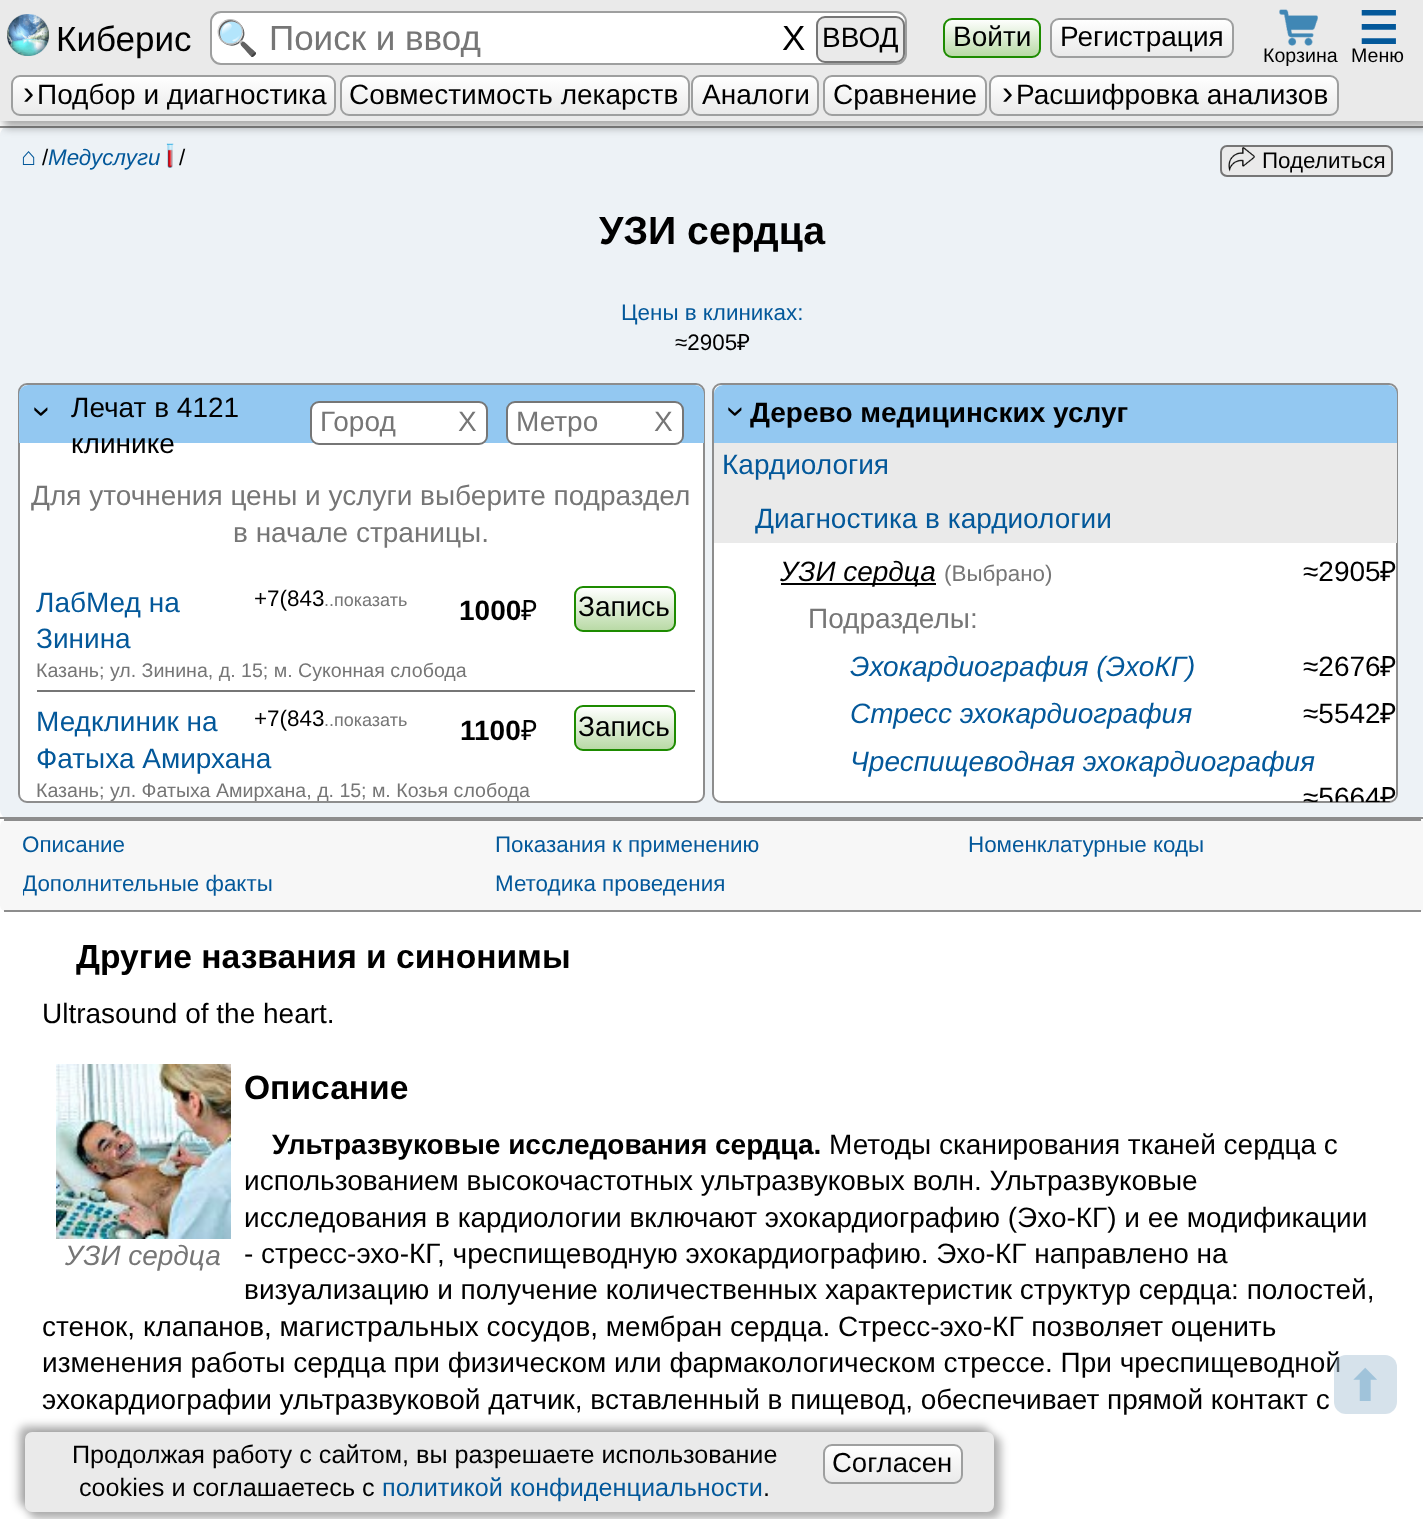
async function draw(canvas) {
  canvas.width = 1423
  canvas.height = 1519
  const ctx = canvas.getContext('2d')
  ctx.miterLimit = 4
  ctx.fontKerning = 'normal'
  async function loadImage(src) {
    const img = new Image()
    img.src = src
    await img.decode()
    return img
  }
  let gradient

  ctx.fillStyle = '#fff'
  ctx.fillRect(0, 0, 1423, 1519)
  ctx.fillStyle = '#edf2f6'
  ctx.beginPath()
  ctx.roundRect(0, 126, 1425, 693, 9)
  ctx.fill()
  ctx.fillStyle = '#8d8d8d'
  ctx.fillRect(0, 126, 1423, 2)
  ctx.fillStyle = '#0000004d'
  ctx.filter = 'blur(4px)'
  ctx.beginPath()
  ctx.rect(-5, -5, 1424, 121)
  ctx.fill()
  ctx.filter = 'none'
  ctx.filter = 'blur(4px)'
  ctx.beginPath()
  ctx.rect(4, 4, 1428, 124)
  ctx.fill()
  ctx.filter = 'none'
  ctx.fillStyle = '#eaeaea'
  ctx.fillRect(0, 0, 1423, 121)
  ctx.drawImage(await loadImage('image0.png'), 7, 14, 42, 42)
  ctx.font = '35px Liberation Sans'
  ctx.fillStyle = '#000'
  ctx.fillText('Киберис', 56, 51)
  ctx.fillStyle = '#fff'
  ctx.beginPath()
  ctx.roundRect(211, 12, 695, 52, 10)
  ctx.fill()
  ctx.strokeStyle = '#9e9f9f'
  ctx.lineWidth = 2
  ctx.stroke()
  ctx.font = '35px Noto Color Emoji'
  ctx.fillStyle = '#767676'
  ctx.fillText('🔍', 215, 50)
  ctx.font = '35px Liberation Sans'
  ctx.fillText('Поиск и ввод', 269, 50)
  ctx.fillStyle = '#000'
  ctx.fillText('X', 782, 50)
  ctx.fillStyle = '#eaeaea'
  ctx.beginPath()
  ctx.roundRect(817, 17, 87, 45, 8)
  ctx.fill()
  ctx.strokeStyle = '#767676'
  ctx.stroke()
  ctx.font = '28px Liberation Sans'
  ctx.fillStyle = '#000'
  ctx.fillText('ВВОД', 822, 47)
  ctx.save()
  ctx.beginPath()
  ctx.roundRect(943, 18, 98, 40, 9)
  ctx.clip()
  gradient = ctx.createLinearGradient(992, 56, 992, 19)
  gradient.addColorStop(0, '#b9daa6')
  gradient.addColorStop(1, '#fff')
  ctx.fillStyle = gradient
  ctx.fillRect(943, 19, 98, 37)
  ctx.restore()
  ctx.beginPath()
  ctx.roundRect(944, 19, 96, 38, 8)
  ctx.strokeStyle = '#1d8b00'
  ctx.stroke()
  ctx.fillText('Войти', 953, 46)
  ctx.save()
  ctx.beginPath()
  ctx.roundRect(1050, 18, 184, 40, 9)
  ctx.clip()
  gradient = ctx.createLinearGradient(1142, 56, 1142, 19)
  gradient.addColorStop(0, '#eaeaea')
  gradient.addColorStop(1, '#fff')
  ctx.fillStyle = gradient
  ctx.fillRect(1050, 19, 184, 37)
  ctx.restore()
  ctx.beginPath()
  ctx.roundRect(1051, 19, 182, 38, 8)
  ctx.strokeStyle = '#9e9f9f'
  ctx.stroke()
  ctx.fillText('Регистрация', 1060, 46)
  ctx.font = 'bold 45px DejaVu Sans'
  ctx.fillStyle = '#03589a'
  ctx.fillText('☰', 1358, 44)
  ctx.font = '19.6px Liberation Sans'
  ctx.fillStyle = '#000'
  ctx.fillText('Меню', 1351, 62)
  ctx.drawImage(await loadImage('image1.png'), 1279, 9, 39, 37)
  ctx.fillText('Корзина', 1263, 62)
  ctx.save()
  ctx.beginPath()
  ctx.roundRect(11, 75, 325, 41, 9)
  ctx.clip()
  gradient = ctx.createLinearGradient(173, 114, 173, 77)
  gradient.addColorStop(0, '#eaeaea')
  gradient.addColorStop(1, '#fff')
  ctx.fillStyle = gradient
  ctx.fillRect(11, 77, 325, 37)
  ctx.restore()
  ctx.beginPath()
  ctx.roundRect(12, 76, 323, 39, 8)
  ctx.stroke()
  ctx.font = '33.6px Liberation Sans'
  ctx.fillText('›', 23, 104)
  ctx.font = '28px Liberation Sans'
  ctx.fillText('Подбор и диагностика', 37, 104)
  ctx.save()
  ctx.beginPath()
  ctx.roundRect(340, 75, 350, 41, 9)
  ctx.clip()
  gradient = ctx.createLinearGradient(515, 114, 515, 77)
  gradient.addColorStop(0, '#eaeaea')
  gradient.addColorStop(1, '#fff')
  ctx.fillStyle = gradient
  ctx.fillRect(340, 77, 350, 37)
  ctx.restore()
  ctx.beginPath()
  ctx.roundRect(341, 76, 348, 39, 8)
  ctx.stroke()
  ctx.fillText('Совместимость лекарств', 349, 104)
  ctx.save()
  ctx.beginPath()
  ctx.roundRect(691, 75, 128, 41, 9)
  ctx.clip()
  gradient = ctx.createLinearGradient(755, 114, 755, 77)
  gradient.addColorStop(0, '#eaeaea')
  gradient.addColorStop(1, '#fff')
  ctx.fillStyle = gradient
  ctx.fillRect(691, 77, 128, 37)
  ctx.restore()
  ctx.beginPath()
  ctx.roundRect(692, 76, 126, 39, 8)
  ctx.stroke()
  ctx.fillText('Аналоги', 702, 104)
  ctx.save()
  ctx.beginPath()
  ctx.roundRect(823, 75, 164, 41, 9)
  ctx.clip()
  gradient = ctx.createLinearGradient(905, 114, 905, 77)
  gradient.addColorStop(0, '#eaeaea')
  gradient.addColorStop(1, '#fff')
  ctx.fillStyle = gradient
  ctx.fillRect(823, 77, 164, 37)
  ctx.restore()
  ctx.beginPath()
  ctx.roundRect(824, 76, 162, 39, 8)
  ctx.stroke()
  ctx.fillText('Сравнение', 833, 104)
  ctx.save()
  ctx.beginPath()
  ctx.roundRect(989, 75, 350, 41, 9)
  ctx.clip()
  gradient = ctx.createLinearGradient(1164, 114, 1164, 77)
  gradient.addColorStop(0, '#eaeaea')
  gradient.addColorStop(1, '#fff')
  ctx.fillStyle = gradient
  ctx.fillRect(989, 77, 350, 37)
  ctx.restore()
  ctx.beginPath()
  ctx.roundRect(990, 76, 348, 39, 8)
  ctx.stroke()
  ctx.font = '33.6px Liberation Sans'
  ctx.fillText('›', 1002, 104)
  ctx.font = '28px Liberation Sans'
  ctx.fillText('Расшифровка анализов', 1016, 104)
  ctx.fillStyle = '#8d8d8d'
  ctx.fillRect(0, 817, 1423, 2)
  ctx.font = '25px Liberation Sans'
  ctx.fillStyle = '#03589a'
  ctx.fillText('⌂', 21, 165)
  ctx.font = '22.4px Liberation Sans'
  ctx.fillStyle = '#000'
  ctx.fillText('/', 42, 165)
  ctx.font = 'italic 22.4px Liberation Sans'
  ctx.fillStyle = '#03589a'
  ctx.fillText('Медуслуги', 48, 165)
  ctx.drawImage(await loadImage('image2.png'), 166, 143, 8, 25)
  ctx.font = '22.4px Liberation Sans'
  ctx.fillStyle = '#000'
  ctx.fillText('/', 179, 165)
  ctx.fillStyle = '#eaeaea'
  ctx.beginPath()
  ctx.roundRect(1221, 146, 171, 30, 6)
  ctx.fill()
  ctx.strokeStyle = '#767676'
  ctx.stroke()
  ctx.drawImage(await loadImage('image3.png'), 1228, 147, 27, 25)
  ctx.fillStyle = '#000'
  ctx.fillText('Поделиться', 1262, 168)
  ctx.font = 'bold 39.25px Liberation Sans'
  ctx.fillText('УЗИ сердца', 599, 244)
  ctx.font = '22.4px Liberation Sans'
  ctx.fillStyle = '#03589a'
  ctx.fillText('Цены в клиниках:', 621, 320)
  ctx.fillStyle = '#000'
  ctx.fillText('≈2905', 675, 350)
  ctx.font = '22.4px Noto Sans'
  ctx.fillText('₽', 737, 350)
  ctx.fillStyle = '#fff'
  ctx.beginPath()
  ctx.roundRect(19, 384, 685, 418, 8)
  ctx.fill()
  ctx.strokeStyle = '#8d8d8d'
  ctx.stroke()
  ctx.fillStyle = '#93c8f1'
  ctx.beginPath()
  ctx.roundRect(19, 385, 685, 58, [9, 9, 0, 0])
  ctx.fill()
  ctx.font = '33.6px Liberation Sans'
  ctx.fillStyle = '#000'
  ctx.save()
  ctx.translate(32, 406)
  ctx.rotate(90 * Math.PI / 180)
  ctx.fillText('›', 0, 0)
  ctx.restore()
  ctx.font = '28px Liberation Sans'
  ctx.fillText('Лечат в 4121', 71, 417)
  ctx.fillText('клинике', 71, 453)
  ctx.fillStyle = '#fff'
  ctx.beginPath()
  ctx.roundRect(311, 402, 176, 42, 8)
  ctx.fill()
  ctx.strokeStyle = '#767676'
  ctx.stroke()
  ctx.fillStyle = '#767676'
  ctx.fillText('Город', 320, 431)
  ctx.fillText('X', 458, 431)
  ctx.fillStyle = '#fff'
  ctx.beginPath()
  ctx.roundRect(507, 402, 176, 42, 8)
  ctx.fill()
  ctx.stroke()
  ctx.fillStyle = '#767676'
  ctx.fillText('Метро', 516, 431)
  ctx.fillText('X', 654, 431)
  ctx.fillText('Для уточнения цены и услуги выберите подраздел', 31, 505)
  ctx.fillText('в начале страницы.', 233, 542)
  ctx.fillRect(37, 690, 658, 2)
  ctx.fillStyle = '#03589a'
  ctx.fillText('ЛабМед на', 36, 612)
  ctx.font = '22.4px Liberation Sans'
  ctx.fillStyle = '#000'
  ctx.fillText('+7(843', 254, 606)
  ctx.font = '18px Liberation Sans'
  ctx.fillStyle = '#767676'
  ctx.fillText('..показать', 324, 606)
  ctx.font = 'bold 28px Liberation Sans'
  ctx.fillStyle = '#000'
  ctx.fillText('1000', 459, 620)
  ctx.font = '28px Noto Sans'
  ctx.fillText('₽', 521, 620)
  ctx.save()
  ctx.beginPath()
  ctx.roundRect(574, 586, 102, 46, 9)
  ctx.clip()
  gradient = ctx.createLinearGradient(625, 630, 625, 588)
  gradient.addColorStop(0, '#b9daa6')
  gradient.addColorStop(1, '#fff')
  ctx.fillStyle = gradient
  ctx.fillRect(574, 588, 102, 42)
  ctx.restore()
  ctx.beginPath()
  ctx.roundRect(575, 587, 100, 44, 8)
  ctx.strokeStyle = '#1d8b00'
  ctx.stroke()
  ctx.font = '28px Liberation Sans'
  ctx.fillText('Запись', 578, 616)
  ctx.fillStyle = '#03589a'
  ctx.fillText('Зинина', 36, 648)
  ctx.font = '19.6px Liberation Sans'
  ctx.fillStyle = '#767676'
  ctx.fillText('Казань; ул. Зинина, д. 15; м. Суконная слобода', 36, 677)
  ctx.font = '28px Liberation Sans'
  ctx.fillStyle = '#03589a'
  ctx.fillText('Медклиник на', 36, 731)
  ctx.font = '22.4px Liberation Sans'
  ctx.fillStyle = '#000'
  ctx.fillText('+7(843', 254, 726)
  ctx.font = '18px Liberation Sans'
  ctx.fillStyle = '#767676'
  ctx.fillText('..показать', 324, 726)
  ctx.font = 'bold 28px Liberation Sans'
  ctx.fillStyle = '#000'
  ctx.fillText('1100', 460, 740)
  ctx.font = '28px Noto Sans'
  ctx.fillText('₽', 521, 740)
  ctx.save()
  ctx.beginPath()
  ctx.roundRect(574, 705, 102, 46, 9)
  ctx.clip()
  gradient = ctx.createLinearGradient(625, 749, 625, 707)
  gradient.addColorStop(0, '#b9daa6')
  gradient.addColorStop(1, '#fff')
  ctx.fillStyle = gradient
  ctx.fillRect(574, 707, 102, 42)
  ctx.restore()
  ctx.beginPath()
  ctx.roundRect(575, 706, 100, 44, 8)
  ctx.stroke()
  ctx.font = '28px Liberation Sans'
  ctx.fillText('Запись', 578, 736)
  ctx.fillStyle = '#03589a'
  ctx.fillText('Фатыха Амирхана', 36, 768)
  ctx.font = '19.6px Liberation Sans'
  ctx.fillStyle = '#767676'
  ctx.fillText('Казань; ул. Фатыха Амирхана, д. 15', 36, 797)
  ctx.fillText('; м. Козья слобода', 361, 797)
  ctx.fillStyle = '#fff'
  ctx.beginPath()
  ctx.roundRect(713, 384, 684, 418, 8)
  ctx.fill()
  ctx.strokeStyle = '#8d8d8d'
  ctx.stroke()
  ctx.fillStyle = '#93c8f1'
  ctx.beginPath()
  ctx.roundRect(714, 385, 683, 58, [9, 9, 0, 0])
  ctx.fill()
  ctx.font = '33.6px Liberation Sans'
  ctx.fillStyle = '#000'
  ctx.save()
  ctx.translate(726, 406)
  ctx.rotate(90 * Math.PI / 180)
  ctx.fillText('›', 0, 0)
  ctx.restore()
  ctx.font = 'bold 28px Liberation Sans'
  ctx.fillText('Дерево медицинских услуг', 750, 422)
  ctx.fillStyle = '#eaeaea'
  ctx.fillRect(714, 443, 683, 100)
  ctx.font = '28px Liberation Sans'
  ctx.fillStyle = '#03589a'
  ctx.fillText('Кардиология', 722, 474)
  ctx.fillText('Диагностика в кардиологии', 755, 528)
  ctx.fillStyle = '#000'
  ctx.fillRect(781, 583, 155, 2)
  ctx.font = 'italic 28px Liberation Sans'
  ctx.fillText('УЗИ сердца', 780, 581)
  ctx.font = '22.4px Liberation Sans'
  ctx.fillStyle = '#767676'
  ctx.fillText('(Выбрано)', 944, 581)
  ctx.font = '28px Liberation Sans'
  ctx.fillStyle = '#000'
  ctx.fillText('≈2905', 1303, 581)
  ctx.font = '28px Noto Sans'
  ctx.fillText('₽', 1380, 581)
  ctx.font = '28px Liberation Sans'
  ctx.fillStyle = '#767676'
  ctx.fillText('Подразделы:', 808, 628)
  ctx.font = 'italic 28px Liberation Sans'
  ctx.fillStyle = '#03589a'
  ctx.fillText('Эхокардиография (ЭхоКГ)', 850, 676)
  ctx.font = '28px Liberation Sans'
  ctx.fillStyle = '#000'
  ctx.fillText('≈2676', 1303, 676)
  ctx.font = '28px Noto Sans'
  ctx.fillText('₽', 1380, 676)
  ctx.font = 'italic 28px Liberation Sans'
  ctx.fillStyle = '#03589a'
  ctx.fillText('Стресс эхокардиография', 850, 723)
  ctx.font = '28px Liberation Sans'
  ctx.fillStyle = '#000'
  ctx.fillText('≈5542', 1303, 723)
  ctx.font = '28px Noto Sans'
  ctx.fillText('₽', 1380, 723)
  ctx.font = 'italic 28px Liberation Sans'
  ctx.fillStyle = '#03589a'
  ctx.fillText('Чреспищеводная эхокардиография', 850, 771)
  ctx.save()
  ctx.beginPath()
  ctx.roundRect(714, 385, 683, 417, 7)
  ctx.clip()
  ctx.font = '28px Liberation Sans'
  ctx.fillStyle = '#000'
  ctx.fillText('≈5664', 1303, 807)
  ctx.font = '28px Noto Sans'
  ctx.fillText('₽', 1380, 807)
  ctx.restore()
  ctx.fillStyle = '#f7f7f7'
  ctx.beginPath()
  ctx.roundRect(0, 819, 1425, 93, 7)
  ctx.fill()
  ctx.fillStyle = '#8d8d8d'
  ctx.fillRect(4, 819, 1417, 2)
  ctx.fillRect(4, 910, 1417, 2)
  ctx.font = '22.4px Liberation Sans'
  ctx.fillStyle = '#03589a'
  ctx.fillText('Описание', 22, 852)
  ctx.fillText('Показания к применению', 495, 852)
  ctx.fillText('Номенклатурные коды', 968, 852)
  ctx.save()
  ctx.beginPath()
  ctx.rect(23, 865, 450, 38)
  ctx.clip()
  ctx.fillText('Дополнительные факты', 22, 891)
  ctx.restore()
  ctx.fillText('Методика проведения', 495, 891)
  ctx.font = 'bold 33.6px Liberation Sans'
  ctx.fillStyle = '#000'
  ctx.fillText('Другие названия и синонимы', 76, 968)
  ctx.font = '28px Liberation Sans'
  ctx.fillText('Ultrasound of the heart.', 42, 1023)
  ctx.font = 'bold 33.6px Liberation Sans'
  ctx.fillText('Описание', 244, 1099)
  ctx.font = 'bold 28px Liberation Sans'
  ctx.fillText('Ультразвуковые исследования сердца.', 272, 1154)
  ctx.font = '28px Liberation Sans'
  ctx.fillText('Методы сканирования тканей сердца с', 829, 1154)
  ctx.fillText('использованием высокочастотных ультразвуковых волн. Ультразвуковые', 244, 1190)
  ctx.fillText('исследования в кардиологии включают эхокардиографию (Эхо-КГ) и ее модификации', 244, 1227)
  ctx.fillText('- стресс-эхо-КГ, чреспищеводную эхокардиографию. Эхо-КГ направлено на', 244, 1263)
  ctx.fillText('визуализацию и получение количественных характеристик структур сердца: полостей,', 244, 1299)
  ctx.fillText('стенок, клапанов, магистральных сосудов, мембран сердца. Стресс-эхо-КГ позволяет оценить', 42, 1336)
  ctx.fillText('изменения работы сердца при физическом или фармакологическом стрессе. При чреспищеводной', 42, 1372)
  ctx.fillText('эхокардиографии ультразвуковой датчик, вставленный в пищевод, обеспечивает прямой контакт с', 42, 1409)
  ctx.drawImage(await loadImage('image4.png'), 56, 1064, 175, 175)
  ctx.font = 'italic 28px Liberation Sans'
  ctx.fillStyle = '#767676'
  ctx.fillText('УЗИ сердца', 65, 1265)
  ctx.fillStyle = '#aec5d880'
  ctx.beginPath()
  ctx.roundRect(1334, 1355, 63, 59, 12)
  ctx.fill()
  ctx.font = 'bold 42px DejaVu Sans'
  ctx.fillStyle = '#a0c3da'
  ctx.fillText('⬆', 1347, 1401)
  ctx.fillStyle = '#0000004d'
  ctx.filter = 'blur(4px)'
  ctx.beginPath()
  ctx.roundRect(19, 1426, 970, 81, 7)
  ctx.fill()
  ctx.filter = 'none'
  ctx.filter = 'blur(4px)'
  ctx.beginPath()
  ctx.roundRect(28, 1435, 973, 84, 9)
  ctx.fill()
  ctx.filter = 'none'
  ctx.fillStyle = '#eaeaea'
  ctx.beginPath()
  ctx.roundRect(25, 1432, 969, 80, 7)
  ctx.fill()
  ctx.font = '25.2px Liberation Sans'
  ctx.fillStyle = '#000'
  ctx.fillText('Продолжая работу с сайтом, вы разрешаете использование', 72, 1463)
  ctx.save()
  ctx.beginPath()
  ctx.roundRect(823, 1444, 140, 40, 9)
  ctx.clip()
  gradient = ctx.createLinearGradient(893, 1482, 893, 1446)
  gradient.addColorStop(0, '#eaeaea')
  gradient.addColorStop(1, '#fff')
  ctx.fillStyle = gradient
  ctx.fillRect(823, 1446, 140, 36)
  ctx.restore()
  ctx.beginPath()
  ctx.roundRect(824, 1445, 138, 38, 8)
  ctx.strokeStyle = '#9e9f9f'
  ctx.stroke()
  ctx.font = '27.5px Liberation Sans'
  ctx.fillText('Согласен', 832, 1472)
  ctx.font = '25.2px Liberation Sans'
  ctx.fillText('сookies и соглашаетесь с', 79, 1496)
  ctx.fillStyle = '#03589a'
  ctx.fillText('политикой конфиденциальности', 382, 1496)
  ctx.fillStyle = '#000'
  ctx.fillText('.', 763, 1496)
}

draw(document.querySelector('canvas'))
